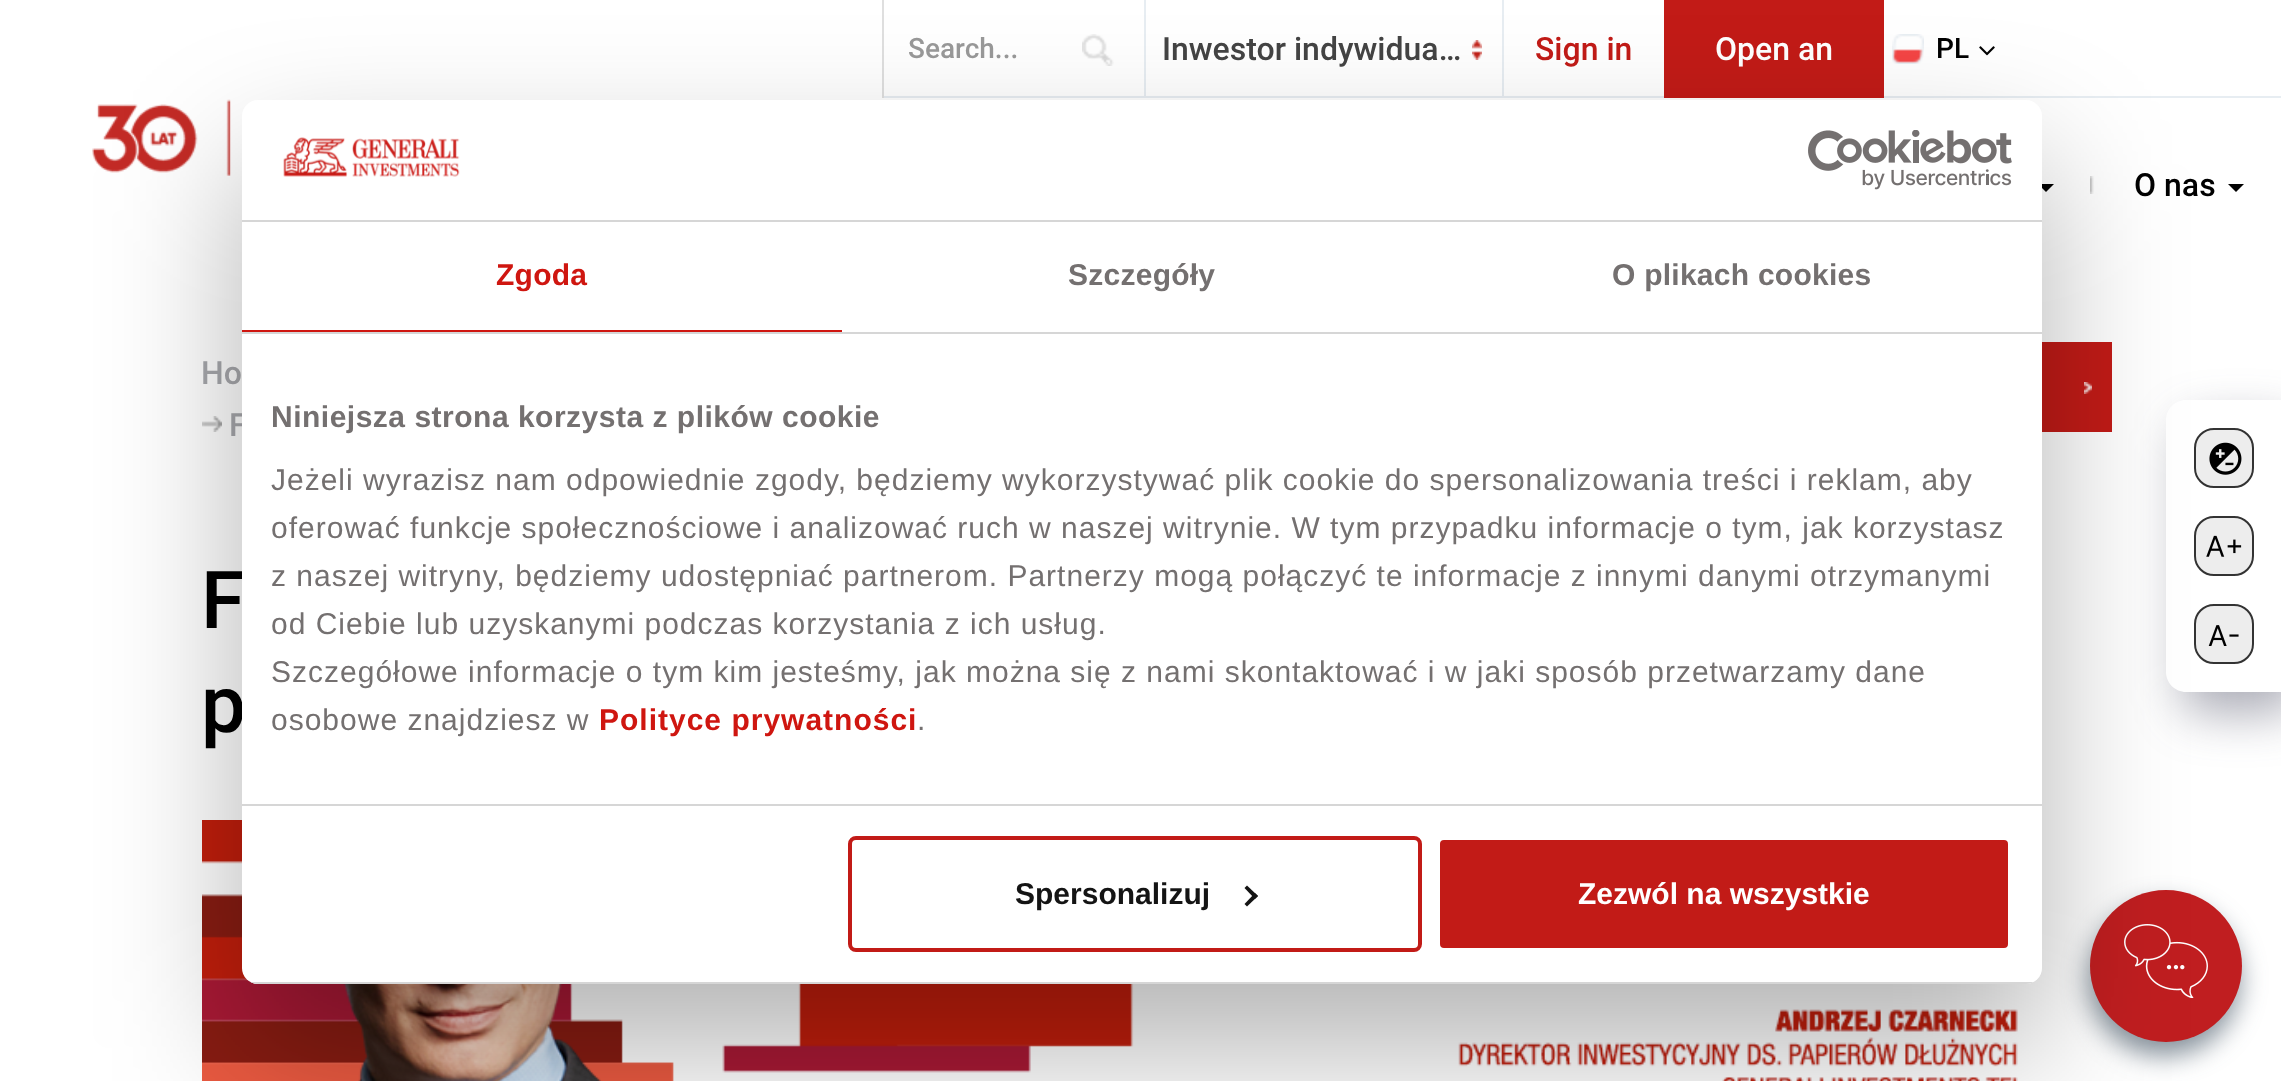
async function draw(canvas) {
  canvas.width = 2281
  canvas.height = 1081
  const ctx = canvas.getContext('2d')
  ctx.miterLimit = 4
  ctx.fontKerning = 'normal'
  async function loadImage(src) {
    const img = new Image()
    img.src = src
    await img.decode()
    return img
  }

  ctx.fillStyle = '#fff'
  ctx.fillRect(0, 0, 2281, 1081)
  ctx.fillStyle = '#dfdfdf'
  ctx.fillRect(882, 0, 2, 98)
  ctx.fillStyle = '#e7edf2'
  ctx.fillRect(884, 96, 1397, 2)
  ctx.font = '500 28px Roboto'
  ctx.fillStyle = '#999'
  ctx.fillText('Search...', 908, 58)
  ctx.drawImage(await loadImage('image0.png'), 1082, 34, 32, 32)
  ctx.fillStyle = '#e7edf2'
  ctx.fillRect(1502, 0, 2, 98)
  ctx.fillRect(1144, 0, 2, 98)
  ctx.font = '500 32px Roboto'
  ctx.fillStyle = '#444'
  ctx.fillText('Inwestor indywidua…', 1162, 60)
  ctx.drawImage(await loadImage('image1.png'), 1472, 40, 10, 20)
  ctx.fillStyle = '#c21b17'
  ctx.fillText('Sign in', 1535, 60)
  ctx.fillRect(1664, 0, 220, 98)
  ctx.fillStyle = '#fff'
  ctx.fillText('Open an', 1715, 60)
  ctx.drawImage(await loadImage('image2.png'), 1892, 34, 32, 30)
  ctx.font = '500 28px Roboto'
  ctx.fillStyle = '#000'
  ctx.fillText('PL', 1936, 58)
  ctx.drawImage(await loadImage('image3.png'), 1979, 46, 16, 10)
  ctx.drawImage(await loadImage('image4.png'), 92, 99, 139, 77)
  ctx.drawImage(await loadImage('image5.png'), 2090, 176, 4, 18)
  ctx.fillStyle = '#020202'
  ctx.beginPath()
  ctx.moveTo(2038, 184)
  ctx.lineTo(2054, 184)
  ctx.lineTo(2046, 192)
  ctx.closePath()
  ctx.fill()
  ctx.font = '500 32px Roboto'
  ctx.fillStyle = '#000'
  ctx.fillText('O nas', 2134, 196)
  ctx.fillStyle = '#020202'
  ctx.beginPath()
  ctx.moveTo(2228, 184)
  ctx.lineTo(2244, 184)
  ctx.lineTo(2236, 192)
  ctx.closePath()
  ctx.fill()
  ctx.fillStyle = '#a8a9ad'
  ctx.fillText('Ho', 201, 384)
  ctx.drawImage(await loadImage('image6.png'), 202, 416, 20, 16)
  ctx.fillText('F', 229, 436)
  ctx.fillStyle = '#c21b17'
  ctx.fillRect(2042, 342, 70, 90)
  ctx.drawImage(await loadImage('image7.png'), 2084, 382, 8, 12)
  ctx.font = '500 80px Roboto'
  ctx.fillStyle = '#000'
  ctx.fillText('F', 201, 628)
  ctx.fillText('p', 201, 732)
  ctx.drawImage(await loadImage('image8.png'), 202, 820, 1817, 261)
  ctx.fillStyle = '#42445a6e'
  ctx.filter = 'blur(24px)'
  ctx.beginPath()
  ctx.roundRect(2182, 422, 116, 292, 20)
  ctx.fill()
  ctx.filter = 'none'
  ctx.fillStyle = '#fff'
  ctx.beginPath()
  ctx.moveTo(2186, 400)
  ctx.lineTo(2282, 400)
  ctx.lineTo(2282, 692)
  ctx.lineTo(2186, 692)
  ctx.bezierCurveTo(2175, 692, 2166, 683, 2166, 672)
  ctx.lineTo(2166, 420)
  ctx.bezierCurveTo(2166, 409, 2175, 400, 2186, 400)
  ctx.closePath()
  ctx.fill()
  ctx.fillStyle = '#ededed'
  ctx.beginPath()
  ctx.roundRect(2195, 429, 58, 58, 19)
  ctx.fill()
  ctx.strokeStyle = '#333'
  ctx.lineWidth = 2
  ctx.stroke()
  ctx.drawImage(await loadImage('image11.png'), 2209, 442, 33, 33)
  ctx.beginPath()
  ctx.roundRect(2195, 517, 58, 58, 19)
  ctx.fill()
  ctx.stroke()
  ctx.drawImage(await loadImage('image12.png'), 2206, 535, 36, 22)
  ctx.beginPath()
  ctx.roundRect(2195, 605, 58, 58, 19)
  ctx.fill()
  ctx.stroke()
  ctx.drawImage(await loadImage('image13.png'), 2208, 625, 31, 21)
  ctx.fillStyle = '#30445494'
  ctx.filter = 'blur(13px)'
  ctx.beginPath()
  ctx.roundRect(2088, 904, 152, 152, 76)
  ctx.fill()
  ctx.filter = 'none'
  ctx.fillStyle = '#c01e20'
  ctx.beginPath()
  ctx.arc(2166, 966, 76, 0, 2 * Math.PI)
  ctx.fill()
  ctx.drawImage(await loadImage('image14.png'), 2124, 924, 84, 74)
  ctx.fillStyle = '#0000004d'
  ctx.filter = 'blur(68px)'
  ctx.beginPath()
  ctx.roundRect(242, 164, 1800, 884, 16)
  ctx.fill()
  ctx.filter = 'none'
  ctx.fillStyle = '#fff'
  ctx.beginPath()
  ctx.roundRect(242, 100, 1800, 884, 16)
  ctx.fill()
  ctx.fillStyle = '#d6d6d6'
  ctx.fillRect(242, 220, 1800, 2)
  ctx.drawImage(await loadImage('image9.png'), 283, 137, 177, 40)
  ctx.drawImage(await loadImage('image10.png'), 1808, 130, 204, 60)
  ctx.fillRect(242, 332, 1800, 2)
  ctx.fillStyle = '#cf1610'
  ctx.fillRect(242, 330, 600, 2)
  ctx.letterSpacing = '0.25px'
  ctx.font = 'bold 30px Liberation Sans'
  ctx.fillText('Zgoda', 496, 285)
  ctx.fillStyle = '#747070'
  ctx.fillText('Szczegóły', 1068, 285)
  ctx.fillText('O plikach cookies', 1612, 285)
  ctx.fillStyle = '#d6d6d6'
  ctx.fillRect(242, 804, 1800, 2)
  ctx.letterSpacing = '0.5px'
  ctx.fillStyle = '#747070'
  ctx.fillText('Niniejsza strona korzysta z plików cookie', 271, 427)
  ctx.letterSpacing = '1px'
  ctx.font = '30px Liberation Sans'
  ctx.fillText('Jeżeli wyrazisz nam odpowiednie zgody, będziemy wykorzystywać plik cookie do spersonalizowania treści i reklam, aby', 271, 490)
  ctx.fillText('oferować funkcje społecznościowe i analizować ruch w naszej witrynie. W tym przypadku informacje o tym, jak korzystasz', 271, 538)
  ctx.fillText('z naszej witryny, będziemy udostępniać partnerom. Partnerzy mogą połączyć te informacje z innymi danymi otrzymanymi', 271, 586)
  ctx.fillText('od Ciebie lub uzyskanymi podczas korzystania z ich usług.', 271, 634)
  ctx.fillText('Szczegółowe informacje o tym kim jesteśmy, jak można się z nami skontaktować i w jaki sposób przetwarzamy dane', 271, 682)
  ctx.fillText('osobowe znajdziesz w', 271, 730)
  ctx.font = 'bold 30px Liberation Sans'
  ctx.fillStyle = '#cf1610'
  ctx.fillText('Polityce prywatności', 599, 730)
  ctx.font = '30px Liberation Sans'
  ctx.fillStyle = '#747070'
  ctx.fillText('.', 917, 730)
  ctx.save()
  ctx.beginPath()
  ctx.roundRect(242, 100, 1800, 884, 16)
  ctx.clip()
  ctx.fillStyle = '#d6d6d6'
  ctx.fillRect(242, 982, 1800, 2)
  ctx.restore()
  ctx.beginPath()
  ctx.roundRect(850, 838, 570, 112, 6)
  ctx.strokeStyle = '#c21b17'
  ctx.lineWidth = 4
  ctx.stroke()
  ctx.letterSpacing = '0px'
  ctx.font = 'bold 30px Liberation Sans'
  ctx.fillStyle = '#141414'
  ctx.fillText('Spersonalizuj', 1015, 904)
  ctx.beginPath()
  ctx.moveTo(1247, 885.5)
  ctx.lineTo(1258, 896)
  ctx.lineTo(1255, 899)
  ctx.lineTo(1244.5, 888)
  ctx.closePath()
  ctx.fill()
  ctx.beginPath()
  ctx.moveTo(1255, 893)
  ctx.lineTo(1258, 896)
  ctx.lineTo(1247, 906.5)
  ctx.lineTo(1244.5, 904)
  ctx.closePath()
  ctx.fill()
  ctx.fillStyle = '#c21b17'
  ctx.beginPath()
  ctx.roundRect(1438, 838, 572, 112, 6)
  ctx.fill()
  ctx.strokeStyle = '#fff'
  ctx.stroke()
  ctx.fillStyle = '#fff'
  ctx.fillText('Zezwól na wszystkie', 1578, 904)
}

draw(document.querySelector('canvas'))
